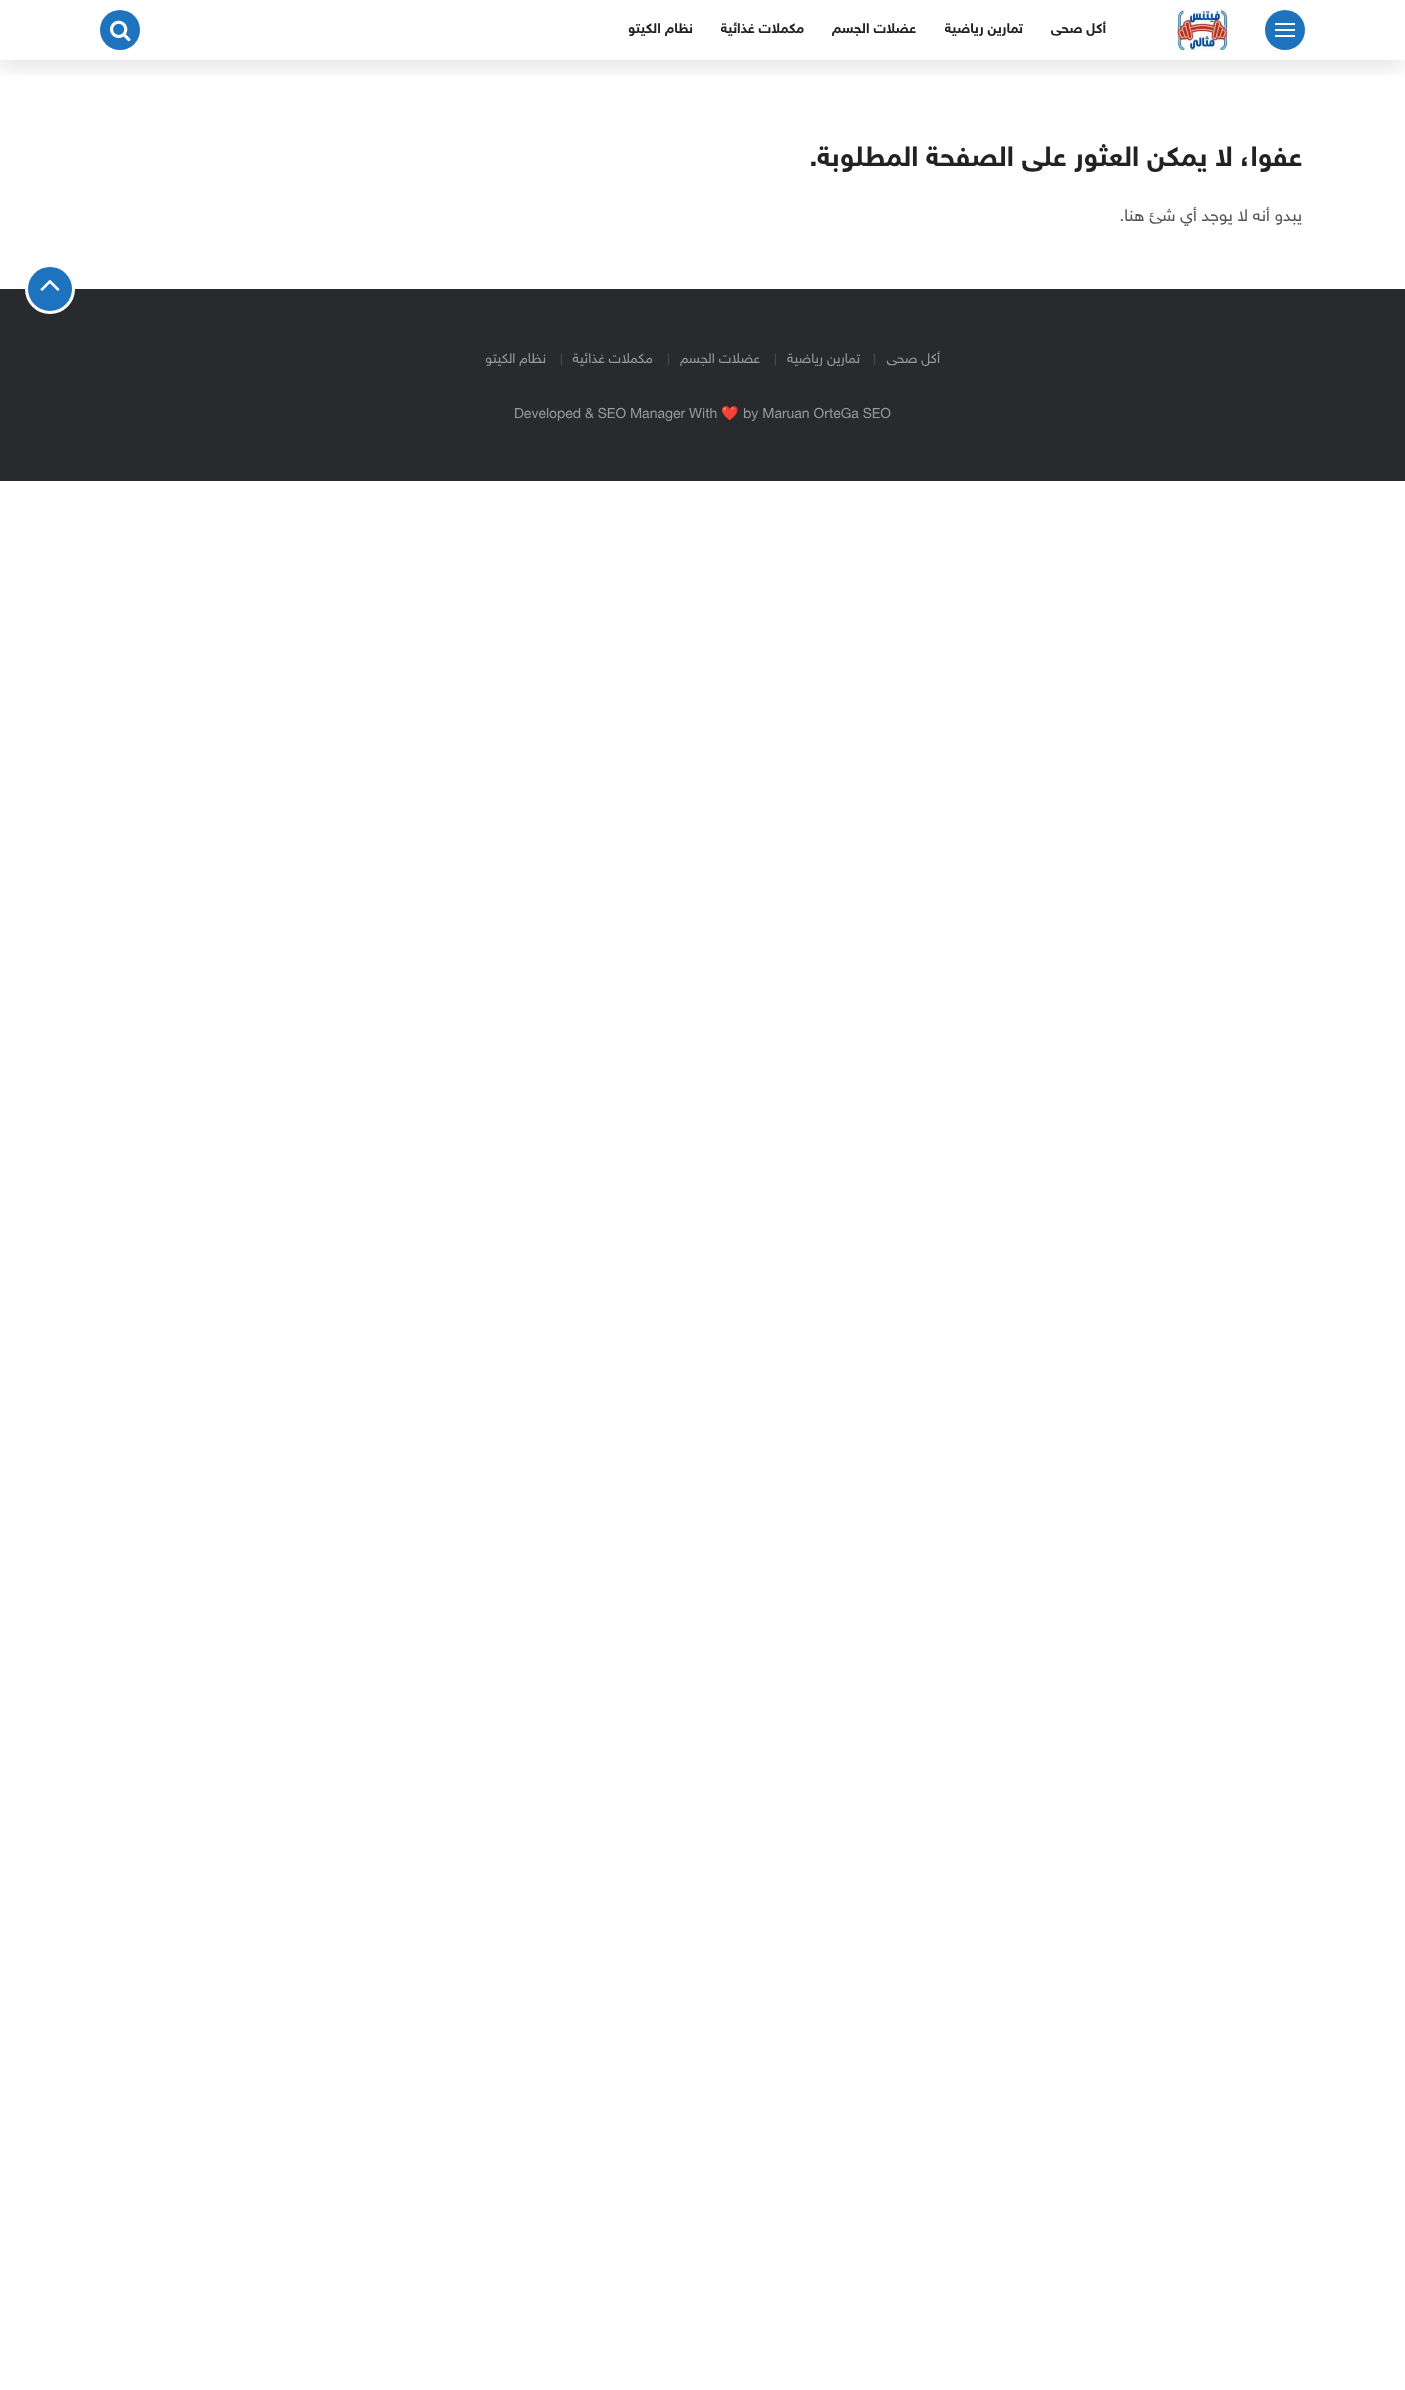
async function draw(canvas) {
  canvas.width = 1405
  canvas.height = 2390
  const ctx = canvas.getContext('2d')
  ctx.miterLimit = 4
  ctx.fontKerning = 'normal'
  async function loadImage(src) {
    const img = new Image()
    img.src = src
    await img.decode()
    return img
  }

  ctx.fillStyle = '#fff'
  ctx.fillRect(0, 0, 1405, 2390)
  ctx.save()
  ctx.beginPath()
  ctx.rect(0, 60, 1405, 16)
  ctx.clip()
  ctx.fillStyle = '#0000001a'
  ctx.filter = 'blur(10px)'
  ctx.beginPath()
  ctx.rect(-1, 8, 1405, 60)
  ctx.fill()
  ctx.filter = 'none'
  ctx.restore()
  ctx.fillStyle = '#1e73be'
  ctx.beginPath()
  ctx.arc(1285, 30, 20, 0, 2 * Math.PI)
  ctx.fill()
  ctx.fillStyle = '#fff'
  ctx.fillRect(1275, 23, 20, 2)
  ctx.fillRect(1275, 29, 20, 2)
  ctx.fillRect(1275, 35, 20, 2)
  ctx.drawImage(await loadImage('image0.png'), 1175, 10, 55, 40)
  ctx.direction = 'rtl'
  ctx.font = 'bold 14px "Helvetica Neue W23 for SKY"'
  ctx.fillStyle = '#222'
  ctx.fillText('أكل صحى', 1106, 33)
  ctx.fillText('تمارين رياضية', 1023, 33)
  ctx.fillText('عضلات الجسم', 916, 33)
  ctx.fillText('مكملات غذائية', 804, 33)
  ctx.fillText('نظام الكيتو', 693, 33)
  ctx.fillStyle = '#1e73be'
  ctx.beginPath()
  ctx.arc(120, 30, 20, 0, 2 * Math.PI)
  ctx.fill()
  ctx.drawImage(await loadImage('image1.png'), 110, 20, 21, 22)
  ctx.font = 'bold 28px "Helvetica Neue W23 for SKY"'
  ctx.fillStyle = '#222'
  ctx.fillText('عفوا، لا يمكن العثور على الصفحة المطلوبة.', 1302, 166)
  ctx.font = '17px "Helvetica Neue W23 for SKY"'
  ctx.fillStyle = '#555'
  ctx.fillText('يبدو أنه لا يوجد أي شئ هنا.', 1302, 221)
  ctx.fillStyle = '#292a2e'
  ctx.fillRect(0, 289, 1405, 192)
  ctx.fillStyle = '#1e73be'
  ctx.beginPath()
  ctx.arc(50, 289, 23.5, 0, 2 * Math.PI)
  ctx.fill()
  ctx.strokeStyle = '#fff'
  ctx.lineWidth = 3
  ctx.stroke()
  ctx.drawImage(await loadImage('image2.png'), 40, 279, 20, 12)
  ctx.font = '14px "Helvetica Neue W23 for SKY"'
  ctx.fillStyle = '#999'
  ctx.fillText('أكل صحى', 940, 363)
  ctx.direction = 'ltr'
  ctx.font = '12px "Helvetica Neue W23 for SKY"'
  ctx.fillStyle = '#555'
  ctx.fillText('|', 873, 363)
  ctx.direction = 'rtl'
  ctx.font = '14px "Helvetica Neue W23 for SKY"'
  ctx.fillStyle = '#999'
  ctx.fillText('تمارين رياضية', 860, 363)
  ctx.direction = 'ltr'
  ctx.font = '12px "Helvetica Neue W23 for SKY"'
  ctx.fillStyle = '#555'
  ctx.fillText('|', 774, 363)
  ctx.direction = 'rtl'
  ctx.font = '14px "Helvetica Neue W23 for SKY"'
  ctx.fillStyle = '#999'
  ctx.fillText('عضلات الجسم', 760, 363)
  ctx.direction = 'ltr'
  ctx.font = '12px "Helvetica Neue W23 for SKY"'
  ctx.fillStyle = '#555'
  ctx.fillText('|', 667, 363)
  ctx.direction = 'rtl'
  ctx.font = '14px "Helvetica Neue W23 for SKY"'
  ctx.fillStyle = '#999'
  ctx.fillText('مكملات غذائية', 653, 363)
  ctx.direction = 'ltr'
  ctx.font = '12px "Helvetica Neue W23 for SKY"'
  ctx.fillStyle = '#555'
  ctx.fillText('|', 560, 363)
  ctx.direction = 'rtl'
  ctx.font = '14px "Helvetica Neue W23 for SKY"'
  ctx.fillStyle = '#999'
  ctx.fillText('نظام الكيتو', 546, 363)
  ctx.direction = 'ltr'
  ctx.fillText('by Maruan OrteGa SEO', 743, 418)
  ctx.font = '14px Noto Color Emoji'
  ctx.fillText('❤️', 721, 418)
  ctx.font = '14px "Helvetica Neue W23 for SKY"'
  ctx.fillText('Developed & SEO Manager With', 514, 418)
}

draw(document.querySelector('canvas'))
